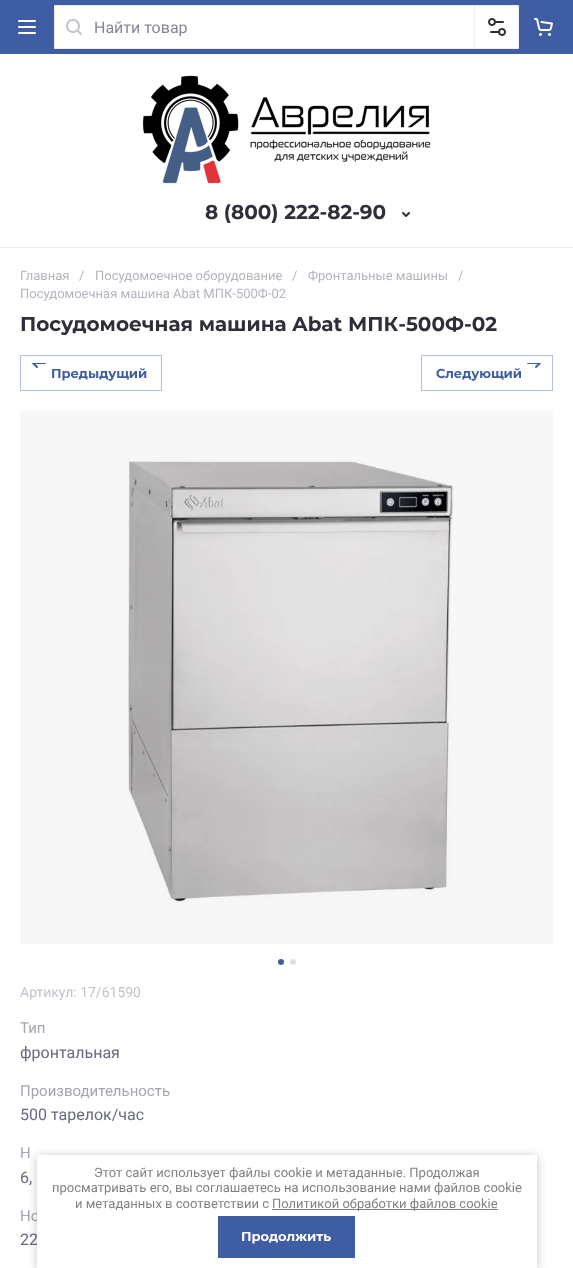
async function draw(canvas) {
  canvas.width = 573
  canvas.height = 1268
  const ctx = canvas.getContext('2d')
  ctx.miterLimit = 4
  ctx.fontKerning = 'normal'
  async function loadImage(src) {
    const img = new Image()
    img.src = src
    await img.decode()
    return img
  }

  ctx.fillStyle = '#fff'
  ctx.fillRect(0, 0, 573, 1268)
  ctx.fillStyle = '#f7f7f7'
  ctx.fillRect(20, 411, 533, 533)
  ctx.fillStyle = '#3f5da3'
  ctx.fillRect(0, 0, 573, 54)
  ctx.drawImage(await loadImage('image0.png'), 18, 20, 18, 14)
  ctx.fillStyle = '#fff'
  ctx.beginPath()
  ctx.rect(54.5, 5.5, 464, 43)
  ctx.fill()
  ctx.strokeStyle = '#ededf3'
  ctx.stroke()
  ctx.drawImage(await loadImage('image1.png'), 66, 19, 16, 16)
  ctx.font = '16px Roboto'
  ctx.fillStyle = '#858798'
  ctx.fillText('Найти товар', 94, 33)
  ctx.fillStyle = '#d2d3e066'
  ctx.fillRect(474, 5, 1, 44)
  ctx.drawImage(await loadImage('image2.png'), 488, 18, 18, 18)
  ctx.drawImage(await loadImage('image3.png'), 534, 18, 19, 18)
  ctx.fillStyle = '#ededf3'
  ctx.fillRect(0, 247, 573, 1)
  ctx.drawImage(await loadImage('image4.png'), 142, 75, 289, 109)
  ctx.font = 'bold 20px Montserrat'
  ctx.fillStyle = '#2e2f38'
  ctx.fillText('8 (800) 222-82-90', 205, 219)
  ctx.drawImage(await loadImage('image5.png'), 402, 212, 8, 5)
  ctx.font = '13px Roboto'
  ctx.fillStyle = '#b3b4bf'
  ctx.fillText('Главная', 20, 280)
  ctx.fillText('/', 79, 280)
  ctx.fillText('Посудомоечное оборудование', 95, 280)
  ctx.fillText('/', 292, 280)
  ctx.fillText('Фронтальные машины', 308, 280)
  ctx.fillText('/', 458, 280)
  ctx.fillText('Посудомоечная машина Abat МПК-500Ф-02', 20, 298)
  ctx.font = 'bold 20px Montserrat'
  ctx.fillStyle = '#2e2f38'
  ctx.fillText('Посудомоечная машина Abat МПК-500Ф-02', 20, 331)
  ctx.strokeStyle = '#b2beda'
  ctx.strokeRect(20.5, 355.5, 141, 35)
  ctx.drawImage(await loadImage('image6.png'), 32, 363, 14, 5)
  ctx.font = 'bold 13px Montserrat'
  ctx.fillStyle = '#3f5da3'
  ctx.fillText('Предыдущий', 51, 378)
  ctx.strokeRect(421.5, 355.5, 131, 35)
  ctx.drawImage(await loadImage('image7.png'), 527, 363, 14, 5)
  ctx.fillText('Следующий', 436, 378)
  ctx.drawImage(await loadImage('image8.png'), 128, 459, 326, 444)
  ctx.beginPath()
  ctx.arc(281, 962, 3, 0, 2 * Math.PI)
  ctx.fill()
  ctx.fillStyle = '#e0e0e1'
  ctx.beginPath()
  ctx.arc(293, 962, 3, 0, 2 * Math.PI)
  ctx.fill()
  ctx.font = '14px Roboto'
  ctx.fillStyle = '#c2c3cb'
  ctx.fillText('Артикул: 17/61590', 20, 997)
  ctx.font = '15px Roboto'
  ctx.fillStyle = '#a4a5b2'
  ctx.fillText('Тип', 20, 1033)
  ctx.font = '16px Roboto'
  ctx.fillStyle = '#67697e'
  ctx.fillText('фронтальная', 20, 1058)
  ctx.font = '15px Roboto'
  ctx.fillStyle = '#a4a5b2'
  ctx.fillText('Производительность', 20, 1096)
  ctx.font = '16px Roboto'
  ctx.fillStyle = '#67697e'
  ctx.fillText('500 тарелок/час', 20, 1120)
  ctx.font = '15px Roboto'
  ctx.fillStyle = '#a4a5b2'
  ctx.fillText('Н', 20, 1158)
  ctx.font = '16px Roboto'
  ctx.fillStyle = '#67697e'
  ctx.fillText('6,', 20, 1183)
  ctx.font = '15px Roboto'
  ctx.fillStyle = '#a4a5b2'
  ctx.fillText('Но', 20, 1221)
  ctx.font = '16px Roboto'
  ctx.fillStyle = '#67697e'
  ctx.fillText('22', 20, 1245)
  ctx.fillStyle = '#0000003b'
  ctx.filter = 'blur(5px)'
  ctx.beginPath()
  ctx.rect(37, 1156, 500, 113)
  ctx.fill()
  ctx.filter = 'none'
  ctx.fillStyle = '#fff'
  ctx.fillRect(37, 1155, 500, 113)
  ctx.font = '13px Roboto'
  ctx.fillStyle = '#808080'
  ctx.fillText('Этот сайт использует файлы cookie и метаданные. Продолжая', 94, 1177)
  ctx.fillText('просматривать его, вы соглашаетесь на использование нами файлов cookie', 52, 1192)
  ctx.fillText('и метаданных в соответствии с', 75, 1208)
  ctx.fillRect(272, 1209, 226, 1)
  ctx.fillText('Политикой обработки файлов cookie', 272, 1208)
  ctx.fillStyle = '#3f5da3'
  ctx.fillRect(218, 1216, 137, 42)
  ctx.font = 'bold 13px Montserrat'
  ctx.fillStyle = '#fff'
  ctx.fillText('Продолжить', 241, 1241)
}

draw(document.querySelector('canvas'))
